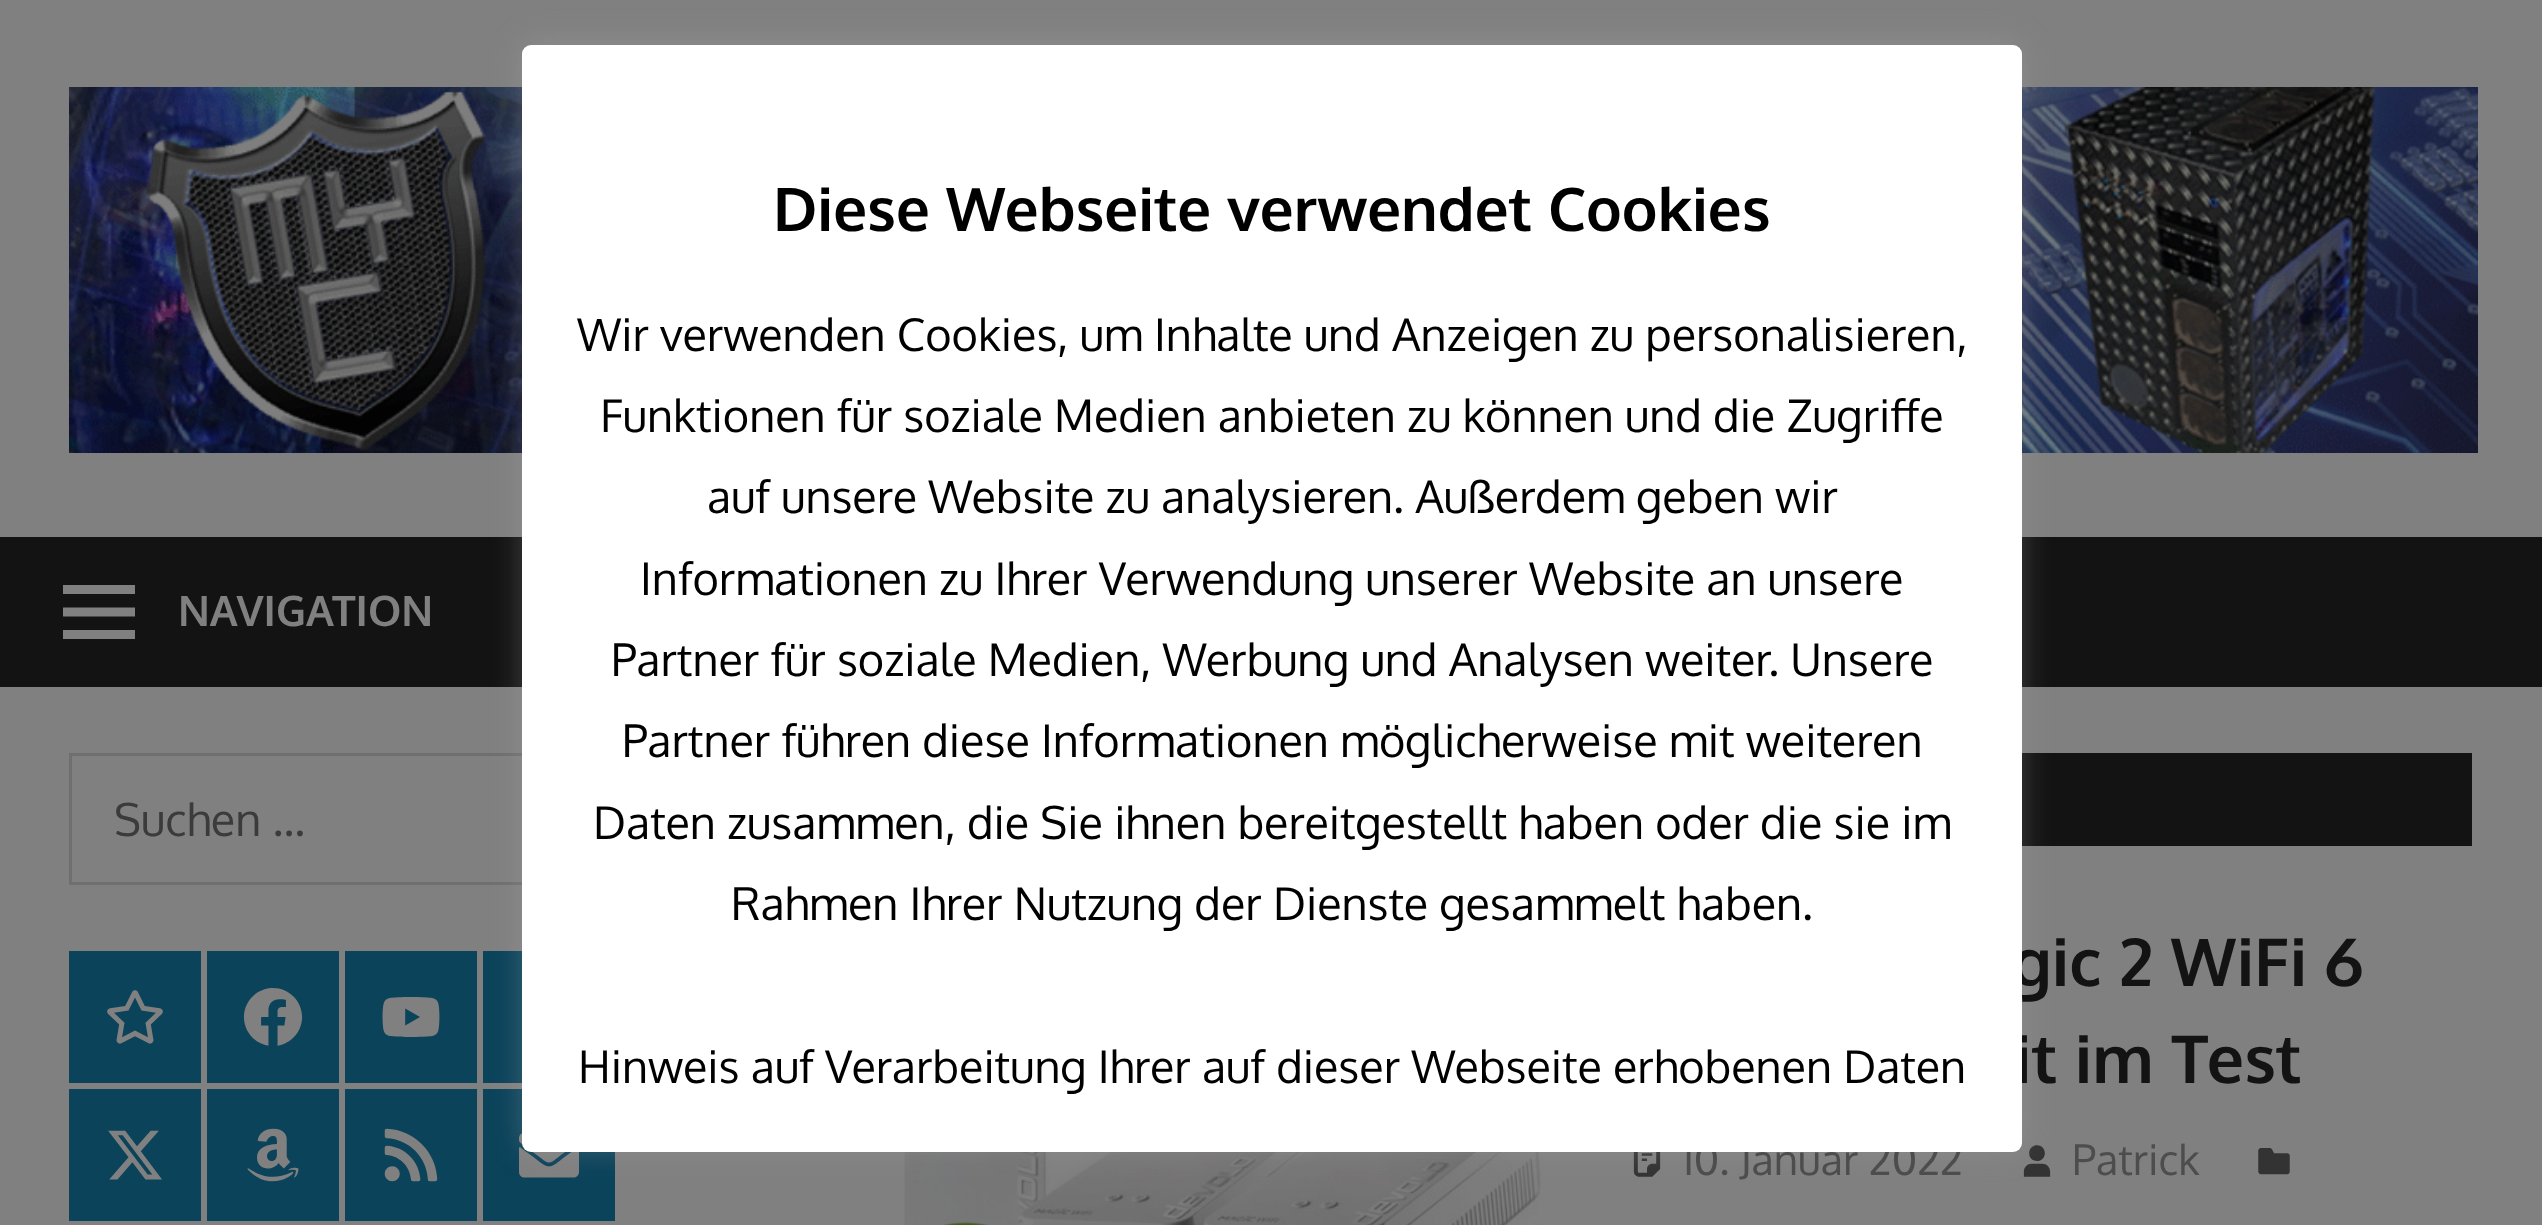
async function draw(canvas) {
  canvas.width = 2542
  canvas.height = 1225
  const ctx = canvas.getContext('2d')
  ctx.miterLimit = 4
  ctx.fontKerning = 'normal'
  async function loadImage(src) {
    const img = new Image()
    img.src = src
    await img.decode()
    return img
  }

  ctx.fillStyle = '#808080'
  ctx.fillRect(0, 0, 2542, 1225)
  ctx.drawImage(await loadImage('image0.png'), 69, 87, 2409, 366)
  ctx.fillStyle = '#131313'
  ctx.fillRect(0, 537, 2542, 150)
  ctx.drawImage(await loadImage('image1.png'), 63, 585, 72, 54)
  ctx.font = 'bold 42px Oxygen'
  ctx.fillStyle = '#808080'
  ctx.fillText('NAVIGATION', 178, 626)
  ctx.strokeStyle = '#6f6f6f'
  ctx.lineWidth = 3
  ctx.strokeRect(70.5, 754.5, 528, 129)
  ctx.fillStyle = '#0b435b'
  ctx.fillRect(345, 951, 132, 132)
  ctx.fillRect(483, 951, 39, 132)
  ctx.fillRect(345, 1089, 132, 132)
  ctx.fillRect(483, 1089, 132, 132)
  ctx.drawImage(await loadImage('image8.png'), 519, 1133, 60, 45)
  ctx.fillStyle = '#131313'
  ctx.fillRect(2022, 753, 450, 93)
  ctx.drawImage(await loadImage('image9.png'), 1633, 1152, 28, 25)
  ctx.drawImage(await loadImage('image10.png'), 2023, 1145, 28, 32)
  ctx.drawImage(await loadImage('image12.png'), 904, 1152, 637, 73)
  ctx.fillStyle = '#acabab4d'
  ctx.filter = 'blur(15px)'
  ctx.beginPath()
  ctx.roundRect(522, 42, 1500, 1107, 9)
  ctx.fill()
  ctx.filter = 'none'
  ctx.font = 'bold 66px Oxygen'
  ctx.fillStyle = '#131313'
  ctx.fillText('gic 2 WiFi 6', 2011, 986)
  ctx.fillText('it im Test', 2014, 1083)
  ctx.font = '42px Oxygen'
  ctx.fillStyle = '#4d4d4d'
  ctx.fillText('10. Januar 2022', 1681, 1175)
  ctx.fillStyle = '#fff'
  ctx.beginPath()
  ctx.roundRect(522, 45, 1500, 1107, 9)
  ctx.fill()
  ctx.font = 'bold 60px Oxygen'
  ctx.fillStyle = '#000'
  ctx.fillText('Diese Webseite verwendet Cookies', 773, 231)
  ctx.font = '45px Oxygen'
  ctx.fillText('Wir verwenden Cookies, um Inhalte und Anzeigen zu personalisieren,', 577, 351)
  ctx.fillText('Funktionen für soziale Medien anbieten zu können und die Zugriffe', 600, 432)
  ctx.fillText('auf unsere Website zu analysieren. Außerdem geben wir', 707, 513)
  ctx.fillText('Informationen zu Ihrer Verwendung unserer Website an unsere', 640, 595)
  ctx.fillText('Partner für soziale Medien, Werbung und Analysen weiter. Unsere', 611, 676)
  ctx.fillText('Partner führen diese Informationen möglicherweise mit weiteren', 622, 757)
  ctx.fillText('Daten zusammen, die Sie ihnen bereitgestellt haben oder die sie im', 593, 839)
  ctx.fillText('Rahmen Ihrer Nutzung der Dienste gesammelt haben.', 731, 920)
  ctx.fillText('Hinweis auf Verarbeitung Ihrer auf dieser Webseite erhobenen Daten', 578, 1083)
  ctx.fillStyle = '#3b3b3b'
  ctx.fillText('Suchen …', 114, 836)
  ctx.fillStyle = '#0b435b'
  ctx.fillRect(69, 951, 132, 132)
  ctx.drawImage(await loadImage('image2.png'), 107, 990, 56, 54)
  ctx.fillRect(207, 951, 132, 132)
  ctx.drawImage(await loadImage('image3.png'), 243, 988, 60, 58)
  ctx.drawImage(await loadImage('image4.png'), 382, 997, 58, 40)
  ctx.fillRect(69, 1089, 132, 132)
  ctx.drawImage(await loadImage('image5.png'), 108, 1130, 54, 50)
  ctx.fillRect(207, 1089, 132, 132)
  ctx.drawImage(await loadImage('image6.png'), 247, 1128, 52, 54)
  ctx.drawImage(await loadImage('image7.png'), 384, 1128, 54, 54)
  ctx.font = '42px Oxygen'
  ctx.fillStyle = '#4d4d4d'
  ctx.fillText('Patrick', 2072, 1175)
  ctx.drawImage(await loadImage('image11.png'), 2258, 1148, 32, 27)
}

draw(document.querySelector('canvas'))
